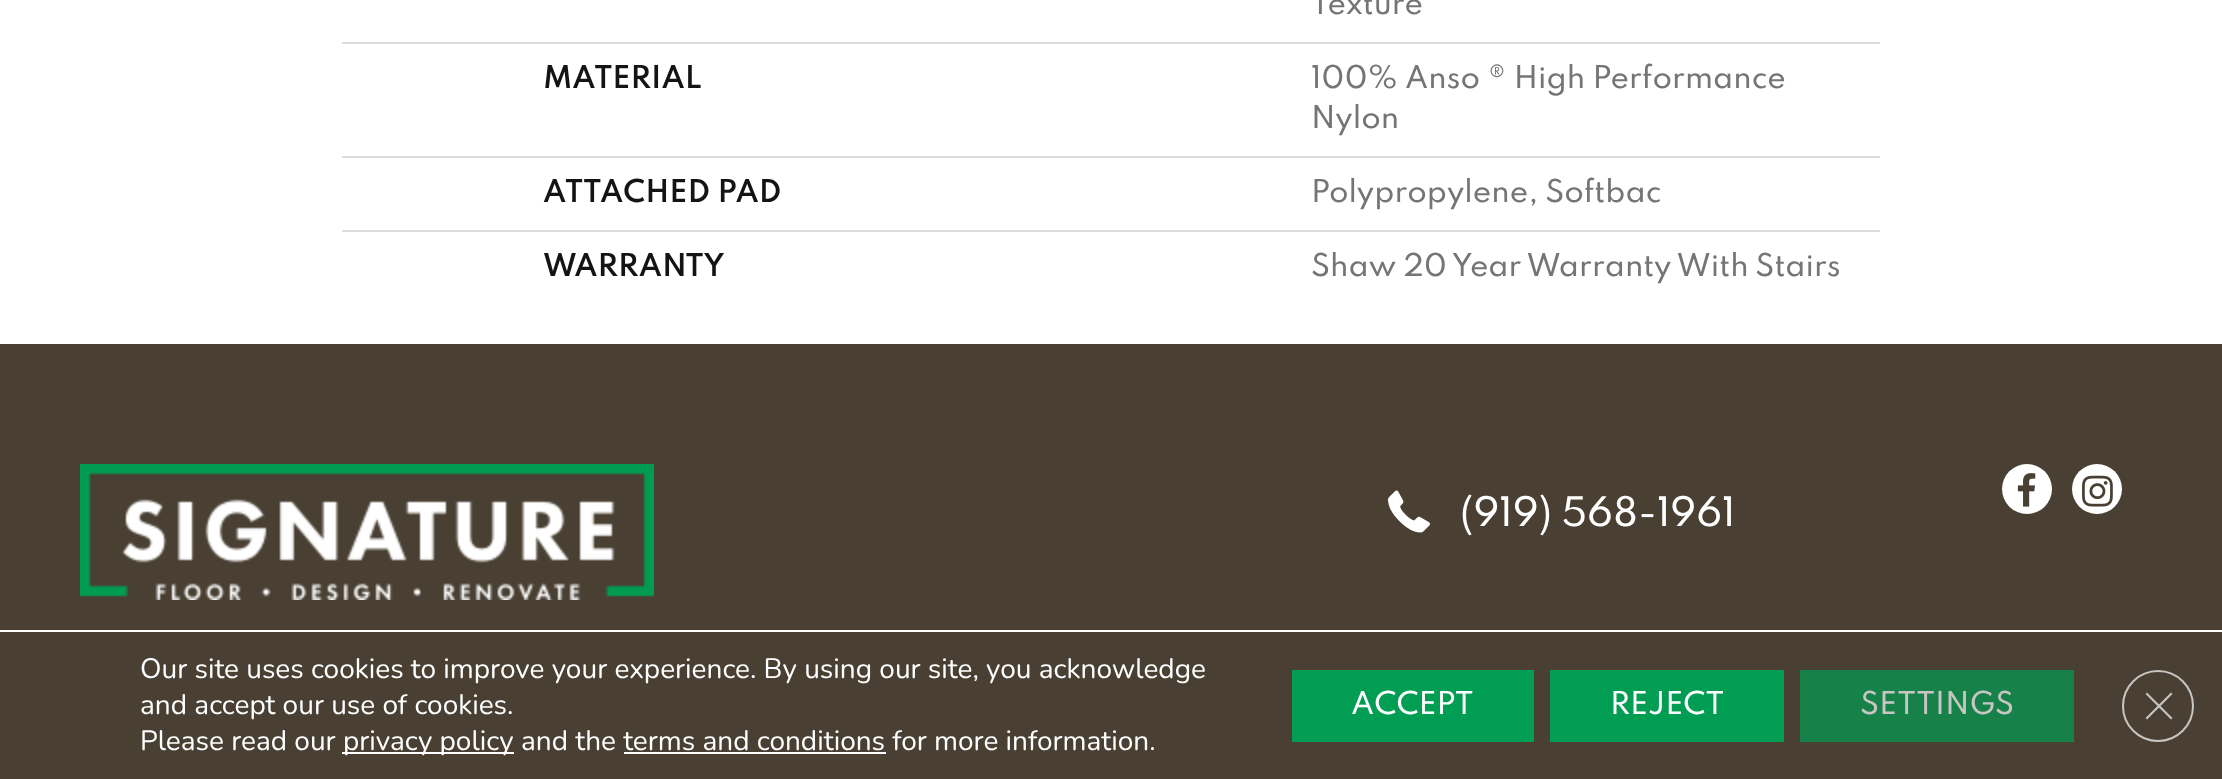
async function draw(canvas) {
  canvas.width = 2222
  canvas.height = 779
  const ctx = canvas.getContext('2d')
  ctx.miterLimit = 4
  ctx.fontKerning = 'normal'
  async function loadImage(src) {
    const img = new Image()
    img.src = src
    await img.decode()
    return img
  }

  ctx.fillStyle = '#fff'
  ctx.fillRect(0, 0, 2222, 779)
  ctx.font = '500 28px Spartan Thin'
  ctx.fillStyle = '#757575'
  ctx.fillText('Texture', 1311, 14)
  ctx.font = '600 28px Spartan Thin'
  ctx.fillStyle = '#141414'
  ctx.fillText('MATERIAL', 543, 88)
  ctx.fillStyle = '#ddd'
  ctx.fillRect(342, 42, 1538, 2)
  ctx.font = '500 28px Spartan Thin'
  ctx.fillStyle = '#757575'
  ctx.fillText('100% Anso ® High Performance', 1311, 88)
  ctx.fillText('Nylon', 1311, 128)
  ctx.font = '600 28px Spartan Thin'
  ctx.fillStyle = '#141414'
  ctx.fillText('ATTACHED PAD', 543, 202)
  ctx.fillStyle = '#ddd'
  ctx.fillRect(342, 156, 1538, 2)
  ctx.font = '500 28px Spartan Thin'
  ctx.fillStyle = '#757575'
  ctx.fillText('Polypropylene, Softbac', 1311, 202)
  ctx.font = '600 28px Spartan Thin'
  ctx.fillStyle = '#141414'
  ctx.fillText('WARRANTY', 543, 276)
  ctx.fillStyle = '#ddd'
  ctx.fillRect(342, 230, 1538, 2)
  ctx.font = '500 28px Spartan Thin'
  ctx.fillStyle = '#757575'
  ctx.fillText('Shaw 20 Year Warranty With Stairs', 1311, 276)
  ctx.fillStyle = '#494033'
  ctx.fillRect(0, 344, 2222, 286)
  ctx.drawImage(await loadImage('image0.png'), 80, 464, 574, 136)
  ctx.drawImage(await loadImage('image1.png'), 1388, 490, 42, 43)
  ctx.font = '500 36px Spartan Thin'
  ctx.fillStyle = '#fff'
  ctx.fillText('(919) 568-1961', 1460, 526)
  ctx.beginPath()
  ctx.arc(2027, 489, 25, 0, 2 * Math.PI)
  ctx.fill()
  ctx.drawImage(await loadImage('image2.png'), 2017, 473, 19, 34)
  ctx.beginPath()
  ctx.arc(2097, 489, 25, 0, 2 * Math.PI)
  ctx.fill()
  ctx.drawImage(await loadImage('image3.png'), 2082, 475, 31, 32)
  ctx.fillStyle = '#494033'
  ctx.fillRect(0, 632, 2222, 147)
  ctx.font = '28px Nunito'
  ctx.fillStyle = '#fff'
  ctx.fillText('Our site uses cookies to improve your experience. By using our site, you acknowledge', 140, 678)
  ctx.fillText('and accept our use of cookies.', 140, 714)
  ctx.fillText('Please read our', 140, 750)
  ctx.fillRect(342, 752, 172, 2)
  ctx.fillText('privacy policy and the terms and conditions for more information.', 343, 750)
  ctx.fillRect(624, 752, 262, 2)
  ctx.fillStyle = '#009d52'
  ctx.fillRect(1292, 670, 242, 72)
  ctx.font = '500 28px Spartan Thin'
  ctx.fillStyle = '#fff'
  ctx.fillText('ACCEPT', 1351, 714)
  ctx.fillStyle = '#009d52'
  ctx.fillRect(1550, 670, 234, 72)
  ctx.fillStyle = '#fff'
  ctx.fillText('REJECT', 1610, 714)
  ctx.fillStyle = '#168149'
  ctx.fillRect(1800, 670, 274, 72)
  ctx.fillStyle = '#c8c6c2'
  ctx.fillText('SETTINGS', 1860, 714)
  ctx.beginPath()
  ctx.arc(2158, 706, 35, 0, 2 * Math.PI)
  ctx.strokeStyle = '#c8c6c2'
  ctx.lineWidth = 2
  ctx.stroke()
  ctx.beginPath()
  ctx.moveTo(2171, 692.5)
  ctx.lineTo(2172.5, 694)
  ctx.lineTo(2147, 719.5)
  ctx.lineTo(2145.5, 718)
  ctx.closePath()
  ctx.fill()
  ctx.beginPath()
  ctx.moveTo(2145.5, 694)
  ctx.lineTo(2147, 692.5)
  ctx.lineTo(2172.5, 718)
  ctx.lineTo(2171, 719.5)
  ctx.closePath()
  ctx.fill()
}

draw(document.querySelector('canvas'))
